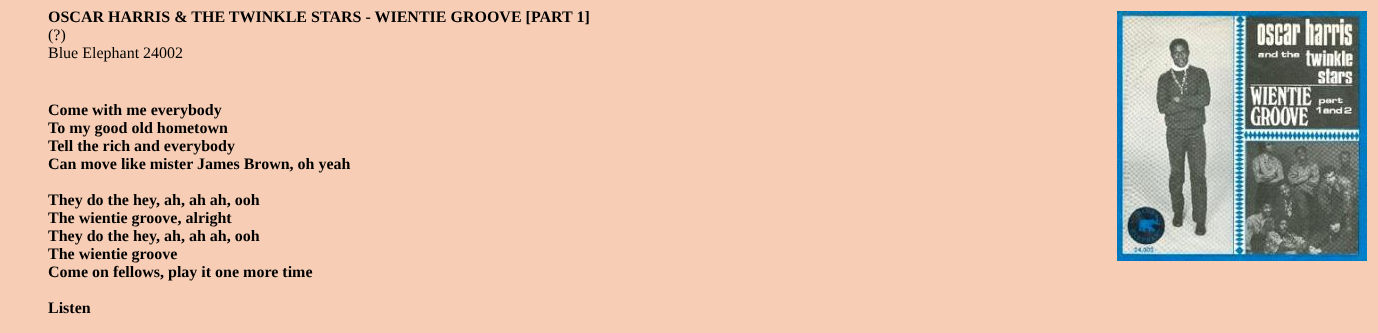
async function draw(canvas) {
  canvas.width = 1378
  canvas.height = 333
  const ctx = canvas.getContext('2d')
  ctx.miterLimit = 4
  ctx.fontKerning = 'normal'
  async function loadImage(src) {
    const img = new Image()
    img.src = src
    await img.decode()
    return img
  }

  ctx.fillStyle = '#f7ceb5'
  ctx.fillRect(0, 0, 1378, 333)
  ctx.font = 'bold 16px Liberation Serif'
  ctx.fillStyle = '#000'
  ctx.fillText('OSCAR HARRIS & THE TWINKLE STARS - WIENTIE GROOVE [PART 1]', 48, 22)
  ctx.font = '16px Liberation Serif'
  ctx.fillText('(?)', 48, 40)
  ctx.fillText('Blue Elephant 24002', 48, 58)
  ctx.font = 'bold 16px Liberation Serif'
  ctx.fillText('Come with me everybody', 48, 115)
  ctx.fillText('To my good old hometown', 48, 133)
  ctx.fillText('Tell the rich and everybody', 48, 151)
  ctx.fillText('Can move like mister James Brown, oh yeah', 48, 169)
  ctx.fillText('They do the hey, ah, ah ah, ooh', 48, 205)
  ctx.fillText('The wientie groove, alright', 48, 223)
  ctx.fillText('They do the hey, ah, ah ah, ooh', 48, 241)
  ctx.fillText('The wientie groove', 48, 259)
  ctx.fillText('Come on fellows, play it one more time', 48, 277)
  ctx.fillText('Listen', 48, 313)
  ctx.drawImage(await loadImage('image0.png'), 1117, 11, 250, 250)
}

draw(document.querySelector('canvas'))
